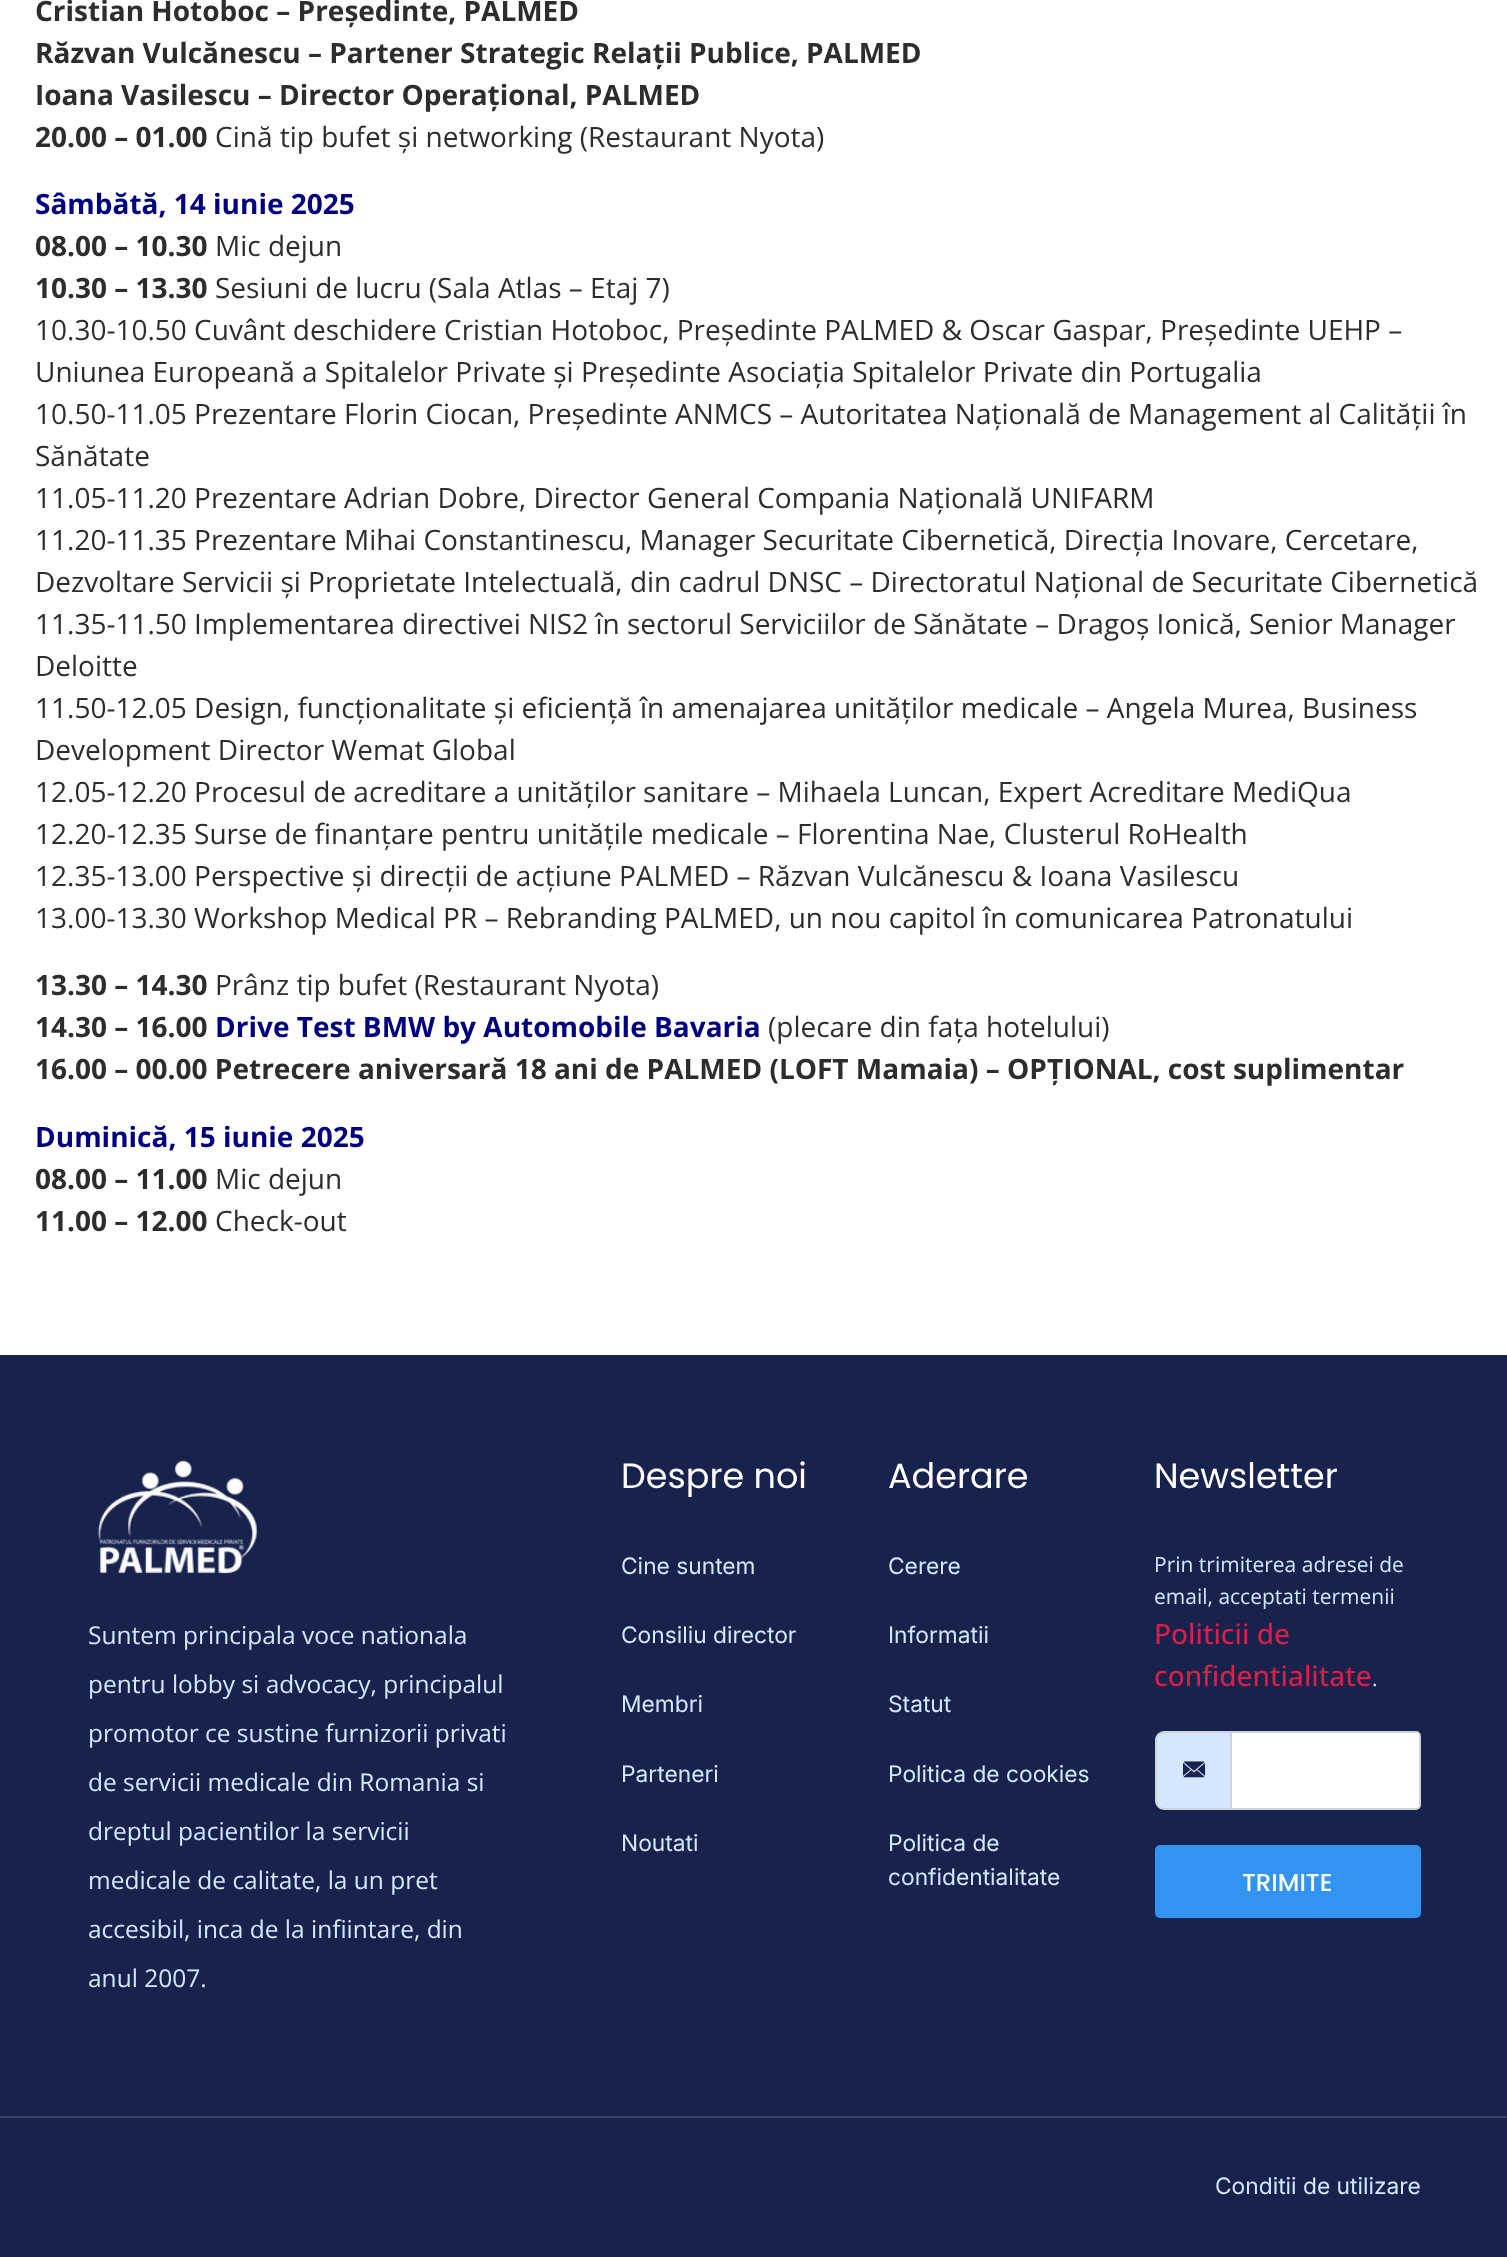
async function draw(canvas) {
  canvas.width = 1507
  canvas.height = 2257
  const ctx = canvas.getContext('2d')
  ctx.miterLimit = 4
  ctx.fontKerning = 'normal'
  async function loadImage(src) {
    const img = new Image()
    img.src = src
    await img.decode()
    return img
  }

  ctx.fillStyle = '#fff'
  ctx.fillRect(0, 0, 1507, 2257)
  ctx.font = 'bold 28px Open Sans'
  ctx.fillStyle = '#2d2d2d'
  ctx.fillText('Cristian Hotoboc – Președinte, PALMED', 35, 21)
  ctx.fillText('Răzvan Vulcănescu – Partener Strategic Relații Publice, PALMED', 35, 63)
  ctx.fillText('Ioana Vasilescu – Director Operațional, PALMED', 35, 105)
  ctx.fillText('20.00 – 01.00', 35, 147)
  ctx.font = '28px Open Sans'
  ctx.fillText('Cină tip bufet și networking (Restaurant Nyota)', 215, 147)
  ctx.font = 'bold 28px Open Sans'
  ctx.fillStyle = '#000080'
  ctx.fillText('Sâmbătă, 14 iunie 2025', 35, 214)
  ctx.fillStyle = '#2d2d2d'
  ctx.fillText('08.00 – 10.30', 35, 256)
  ctx.font = '28px Open Sans'
  ctx.fillText('Mic dejun', 215, 256)
  ctx.font = 'bold 28px Open Sans'
  ctx.fillText('10.30 – 13.30', 35, 298)
  ctx.font = '28px Open Sans'
  ctx.fillText('Sesiuni de lucru (Sala Atlas – Etaj 7)', 215, 298)
  ctx.fillText('10.30-10.50 Cuvânt deschidere Cristian Hotoboc, Președinte PALMED & Oscar Gaspar, Președinte UEHP –', 35, 340)
  ctx.fillText('Uniunea Europeană a Spitalelor Private și Președinte Asociația Spitalelor Private din Portugalia', 35, 382)
  ctx.fillText('10.50-11.05 Prezentare Florin Ciocan, Președinte ANMCS – Autoritatea Națională de Management al Calității în', 35, 424)
  ctx.fillText('Sănătate', 35, 466)
  ctx.fillText('11.05-11.20 Prezentare Adrian Dobre, Director General Compania Națională UNIFARM', 35, 508)
  ctx.fillText('11.20-11.35 Prezentare Mihai Constantinescu, Manager Securitate Cibernetică, Direcția Inovare, Cercetare,', 35, 550)
  ctx.fillText('Dezvoltare Servicii și Proprietate Intelectuală, din cadrul DNSC – Directoratul Național de Securitate Cibernetică', 35, 592)
  ctx.fillText('11.35-11.50 Implementarea directivei NIS2 în sectorul Serviciilor de Sănătate – Dragoș Ionică, Senior Manager', 35, 634)
  ctx.fillText('Deloitte', 35, 676)
  ctx.fillText('11.50-12.05 Design, funcționalitate și eficiență în amenajarea unităților medicale – Angela Murea, Business', 35, 718)
  ctx.fillText('Development Director Wemat Global', 35, 760)
  ctx.fillText('12.05-12.20 Procesul de acreditare a unităților sanitare – Mihaela Luncan, Expert Acreditare MediQua', 35, 802)
  ctx.fillText('12.20-12.35 Surse de finanțare pentru unitățile medicale – Florentina Nae, Clusterul RoHealth', 35, 844)
  ctx.fillText('12.35-13.00 Perspective și direcții de acțiune PALMED – Răzvan Vulcănescu & Ioana Vasilescu', 35, 886)
  ctx.fillText('13.00-13.30 Workshop Medical PR – Rebranding PALMED, un nou capitol în comunicarea Patronatului', 35, 928)
  ctx.font = 'bold 28px Open Sans'
  ctx.fillText('13.30 – 14.30', 35, 995)
  ctx.font = '28px Open Sans'
  ctx.fillText('Prânz tip bufet (Restaurant Nyota)', 215, 995)
  ctx.font = 'bold 28px Open Sans'
  ctx.fillText('14.30 – 16.00', 35, 1037)
  ctx.fillStyle = '#000080'
  ctx.fillText('Drive Test BMW by Automobile Bavaria', 215, 1037)
  ctx.font = '28px Open Sans'
  ctx.fillStyle = '#2d2d2d'
  ctx.fillText('(plecare din fața hotelului)', 768, 1037)
  ctx.font = 'bold 28px Open Sans'
  ctx.fillText('16.00 – 00.00 Petrecere aniversară 18 ani de PALMED (LOFT Mamaia) – OPȚIONAL, cost suplimentar', 35, 1079)
  ctx.fillStyle = '#000080'
  ctx.fillText('Duminică, 15 iunie 2025', 35, 1147)
  ctx.fillStyle = '#2d2d2d'
  ctx.fillText('08.00 – 11.00', 35, 1189)
  ctx.font = '28px Open Sans'
  ctx.fillText('Mic dejun', 215, 1189)
  ctx.font = 'bold 28px Open Sans'
  ctx.fillText('11.00 – 12.00', 35, 1231)
  ctx.font = '28px Open Sans'
  ctx.fillText('Check-out', 215, 1231)
  ctx.fillStyle = '#17224d'
  ctx.fillRect(0, 1355, 1507, 902)
  ctx.fillStyle = '#3a4368'
  ctx.fillRect(0, 2116, 1507, 2)
  ctx.drawImage(await loadImage('image0.png'), 98, 1460, 160, 114)
  ctx.font = '24.5px Open Sans'
  ctx.fillStyle = '#d5e6ff'
  ctx.fillText('Suntem principala voce nationala', 88, 1644)
  ctx.fillText('pentru lobby si advocacy, principalul', 88, 1693)
  ctx.fillText('promotor ce sustine furnizorii privati', 88, 1742)
  ctx.fillText('de servicii medicale din Romania si', 88, 1791)
  ctx.fillText('dreptul pacientilor la servicii', 88, 1840)
  ctx.fillText('medicale de calitate, la un pret', 88, 1889)
  ctx.fillText('accesibil, inca de la infiintare, din', 88, 1938)
  ctx.fillText('anul 2007.', 88, 1987)
  ctx.font = '35px Poppins'
  ctx.fillStyle = '#fff'
  ctx.fillText('Despre noi', 621, 1488)
  ctx.font = '22.75px Inter'
  ctx.fillStyle = '#d5e6ff'
  ctx.fillText('Cine suntem', 621, 1574)
  ctx.fillText('Consiliu director', 621, 1643)
  ctx.fillText('Membri', 621, 1712)
  ctx.fillText('Parteneri', 621, 1782)
  ctx.fillText('Noutati', 621, 1851)
  ctx.font = '35px Poppins'
  ctx.fillStyle = '#fff'
  ctx.fillText('Aderare', 888, 1488)
  ctx.font = '22.75px Inter'
  ctx.fillStyle = '#d5e6ff'
  ctx.fillText('Cerere', 888, 1574)
  ctx.fillText('Informatii', 888, 1643)
  ctx.fillText('Statut', 888, 1712)
  ctx.fillText('Politica de cookies', 888, 1782)
  ctx.fillText('Politica de', 888, 1851)
  ctx.fillText('confidentialitate', 888, 1885)
  ctx.font = '35px Poppins'
  ctx.fillStyle = '#fff'
  ctx.fillText('Newsletter', 1154, 1488)
  ctx.font = '21px Open Sans'
  ctx.fillStyle = '#d5e6ff'
  ctx.fillText('Prin trimiterea adresei de', 1154, 1572)
  ctx.fillText('email, acceptati termenii', 1154, 1604)
  ctx.font = '500 28px Open Sans'
  ctx.fillStyle = '#db1f48'
  ctx.fillText('Politicii de', 1154, 1644)
  ctx.fillText('confidentialitate', 1154, 1686)
  ctx.font = '21px Open Sans'
  ctx.fillStyle = '#d5e6ff'
  ctx.fillText('.', 1372, 1686)
  ctx.beginPath()
  ctx.roundRect(1156, 1732, 75, 77, [8, 0, 0, 8])
  ctx.fill()
  ctx.strokeStyle = '#ced4da'
  ctx.lineWidth = 2
  ctx.stroke()
  ctx.drawImage(await loadImage('image1.png'), 1183, 1761, 23, 17)
  ctx.fillStyle = '#fff'
  ctx.beginPath()
  ctx.roundRect(1231, 1732, 189, 77, [0, 4, 4, 0])
  ctx.fill()
  ctx.stroke()
  ctx.fillStyle = '#3393f0'
  ctx.beginPath()
  ctx.roundRect(1155, 1845, 266, 73, 5)
  ctx.fill()
  ctx.font = '500 24.5px Poppins'
  ctx.fillStyle = '#fff'
  ctx.fillText('TRIMITE', 1242, 1891)
  ctx.font = '22.75px Inter'
  ctx.fillStyle = '#d5e6ff'
  ctx.fillText('Conditii de utilizare', 1215, 2194)
}

draw(document.querySelector('canvas'))
